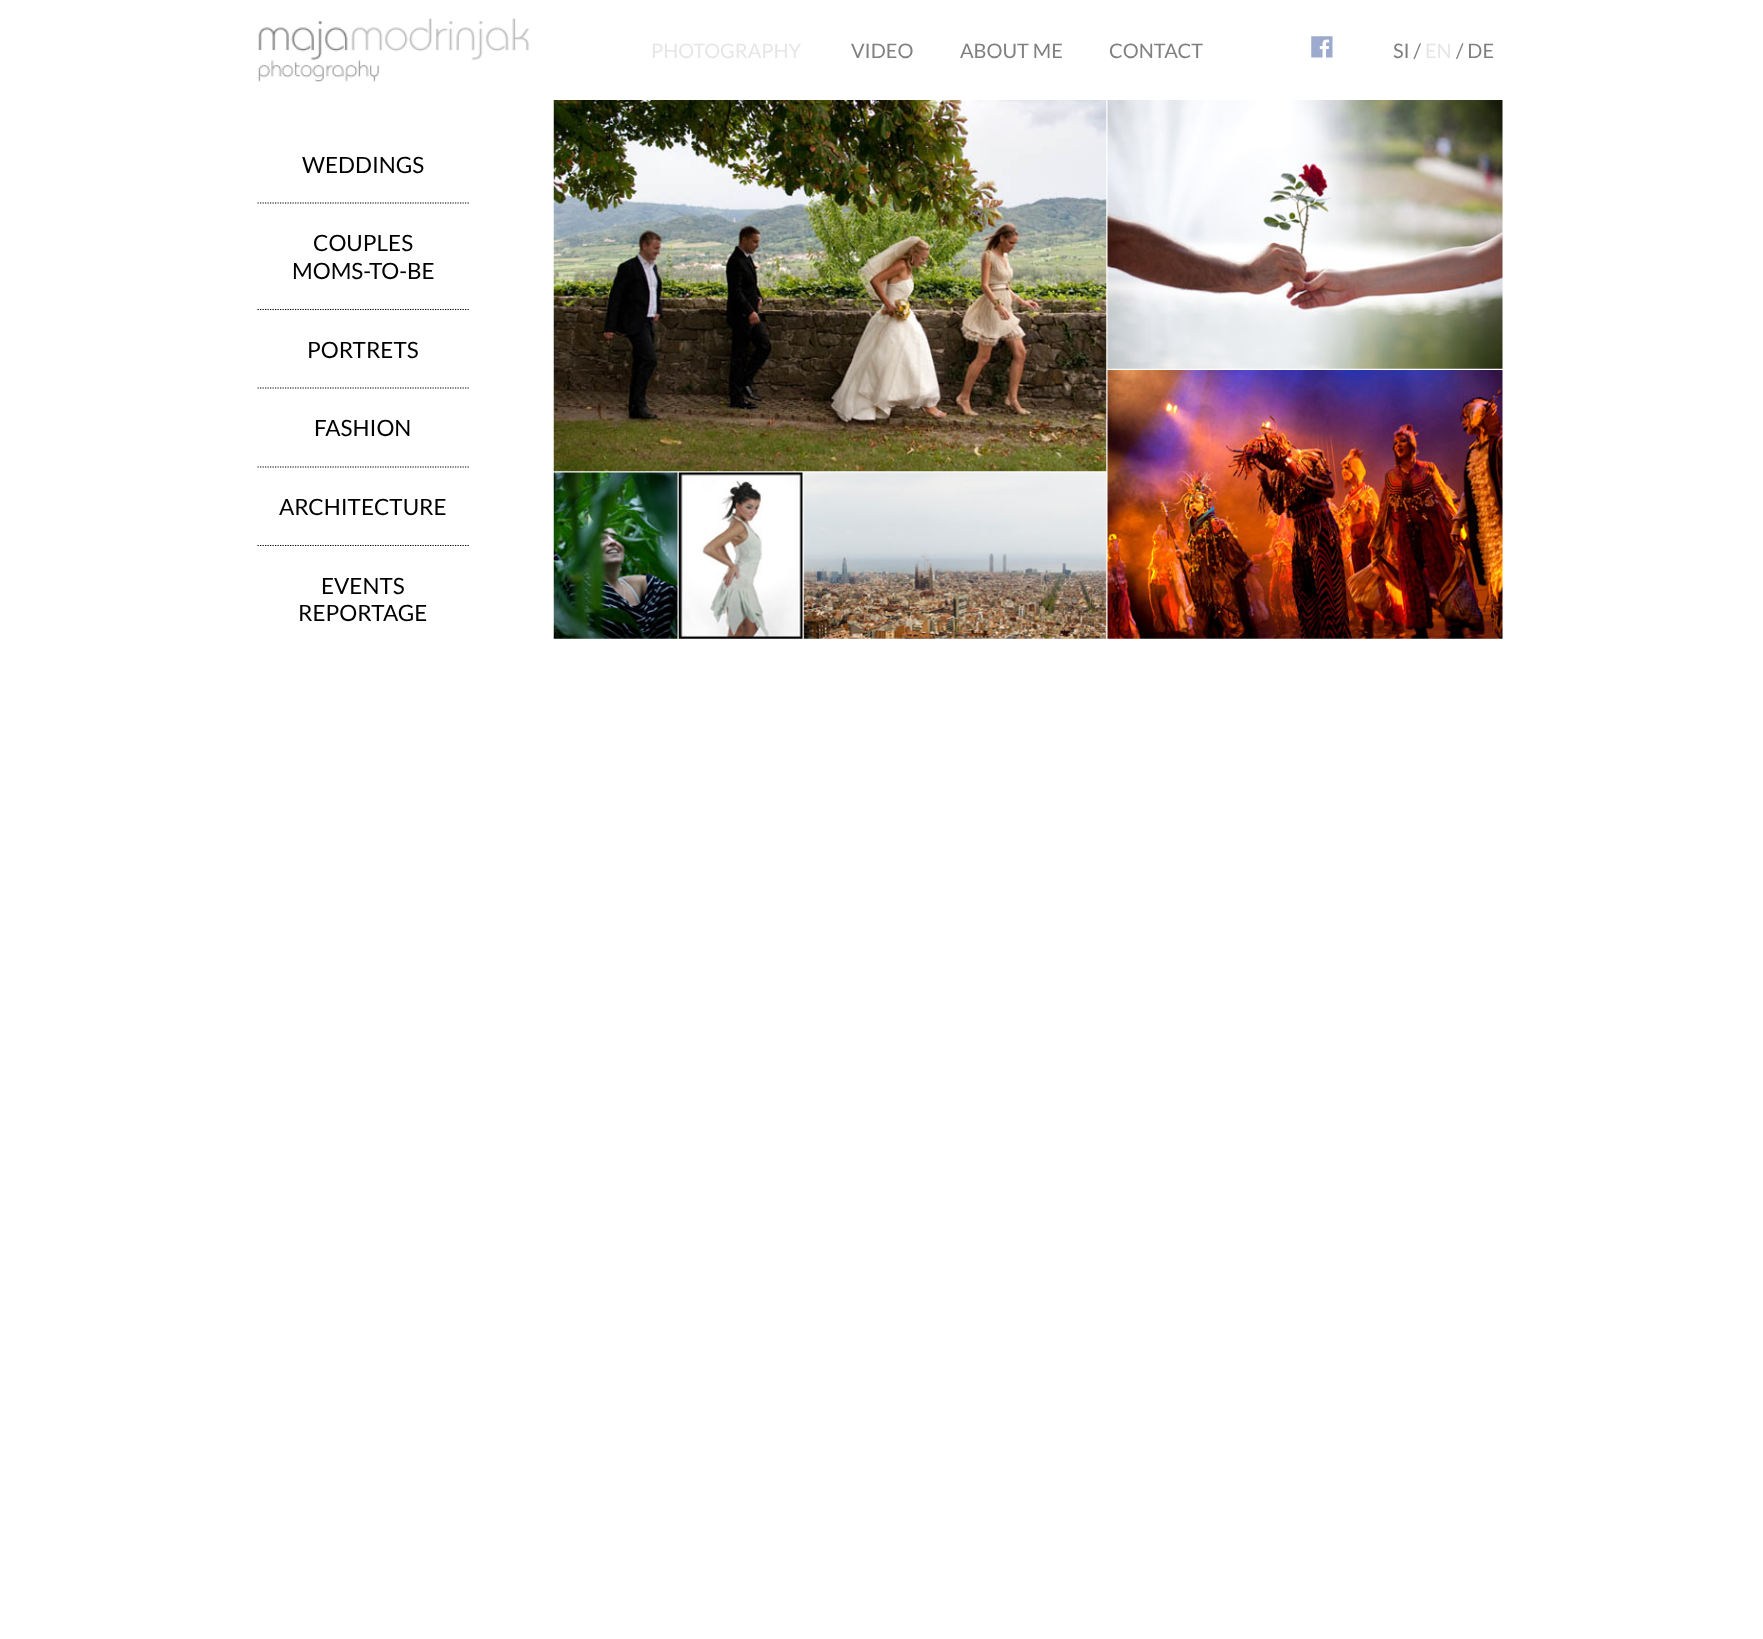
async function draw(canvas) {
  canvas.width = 1763
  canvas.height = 1639
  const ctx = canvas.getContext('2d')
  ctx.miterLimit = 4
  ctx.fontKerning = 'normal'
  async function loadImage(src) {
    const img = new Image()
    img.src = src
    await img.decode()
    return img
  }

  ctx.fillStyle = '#fff'
  ctx.fillRect(0, 0, 1763, 1639)
  ctx.drawImage(await loadImage('image0.png'), 258, 18, 271, 64)
  ctx.font = '20px Lato'
  ctx.fillStyle = '#e6e6e6'
  ctx.fillText('PHOTOGRAPHY', 651, 58)
  ctx.fillStyle = '#808080'
  ctx.fillText('VIDEO', 851, 58)
  ctx.fillText('ABOUT ME', 960, 58)
  ctx.fillText('CONTACT', 1109, 58)
  ctx.drawImage(await loadImage('image1.png'), 1311, 36, 22, 22)
  ctx.fillText('SI /', 1393, 58)
  ctx.fillStyle = '#e6e6e6'
  ctx.fillText('EN', 1425, 58)
  ctx.fillStyle = '#808080'
  ctx.fillText('/ DE', 1456, 58)
  ctx.beginPath()
  ctx.moveTo(257.5, 203)
  ctx.lineTo(470, 203)
  ctx.strokeStyle = '#000'
  ctx.lineWidth = 1.2
  ctx.setLineDash([1.25, 1.25])
  ctx.stroke()
  ctx.font = '22.5px Lato'
  ctx.fillStyle = '#000'
  ctx.fillText('WEDDINGS', 302, 173)
  ctx.beginPath()
  ctx.moveTo(257.5, 309.5)
  ctx.lineTo(470, 309.5)
  ctx.stroke()
  ctx.fillText('COUPLES', 313, 251)
  ctx.fillText('MOMS-TO-BE', 292, 279)
  ctx.beginPath()
  ctx.moveTo(257.5, 388)
  ctx.lineTo(470, 388)
  ctx.stroke()
  ctx.fillText('PORTRETS', 307, 358)
  ctx.beginPath()
  ctx.moveTo(257.5, 467)
  ctx.lineTo(470, 467)
  ctx.stroke()
  ctx.fillText('FASHION', 314, 436)
  ctx.beginPath()
  ctx.moveTo(257.5, 545.5)
  ctx.lineTo(470, 545.5)
  ctx.stroke()
  ctx.fillText('ARCHITECTURE', 279, 515)
  ctx.fillText('EVENTS', 321, 594)
  ctx.fillText('REPORTAGE', 298, 621)
  ctx.drawImage(await loadImage('image2.png'), 553, 100, 554, 372)
  ctx.drawImage(await loadImage('image3.png'), 553, 472, 125, 167)
  ctx.drawImage(await loadImage('image4.png'), 678, 472, 125, 167)
  ctx.drawImage(await loadImage('image5.png'), 803, 472, 304, 167)
  ctx.drawImage(await loadImage('image6.png'), 1107, 100, 396, 269)
  ctx.drawImage(await loadImage('image7.png'), 1107, 370, 396, 269)
}

draw(document.querySelector('canvas'))
